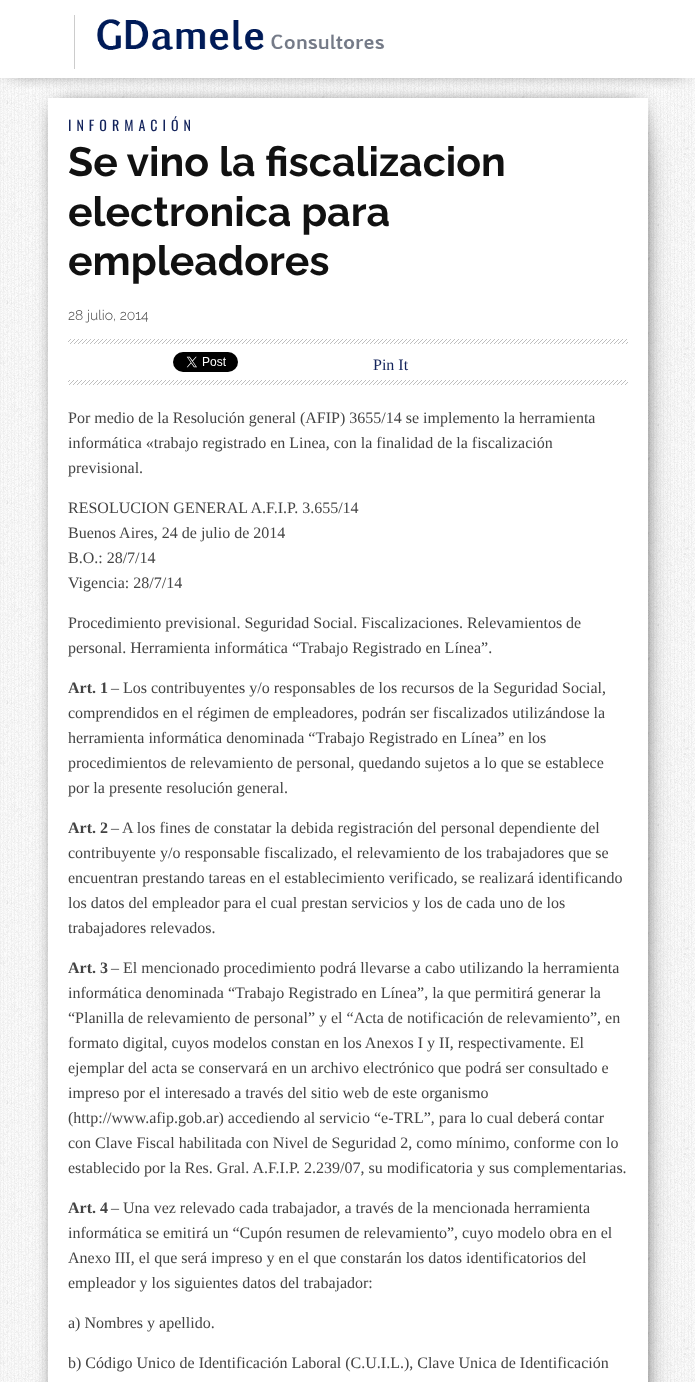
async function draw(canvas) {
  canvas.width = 695
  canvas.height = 1382
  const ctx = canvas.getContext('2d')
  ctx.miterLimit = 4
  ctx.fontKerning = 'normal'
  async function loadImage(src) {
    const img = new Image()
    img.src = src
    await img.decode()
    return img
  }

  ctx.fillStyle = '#fff'
  ctx.fillRect(0, 0, 695, 1382)
  ctx.drawImage(await loadImage('image1.png'), 0, 78, 695, 1304)
  ctx.fillStyle = '#000'
  ctx.filter = 'blur(10px)'
  ctx.beginPath()
  ctx.rect(58, 108, 580, 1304)
  ctx.fill()
  ctx.filter = 'none'
  ctx.fillStyle = '#fff'
  ctx.fillRect(48, 98, 600, 1284)
  ctx.save()
  ctx.beginPath()
  ctx.rect(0, 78, 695, 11)
  ctx.clip()
  ctx.fillStyle = '#000'
  ctx.filter = 'blur(10px)'
  ctx.beginPath()
  ctx.rect(10, 10, 675, 58)
  ctx.fill()
  ctx.filter = 'none'
  ctx.restore()
  ctx.fillStyle = '#ccc'
  ctx.fillRect(74, 15, 1, 54)
  ctx.drawImage(await loadImage('image0.png'), 97, 19, 288, 31)
  ctx.save()
  ctx.beginPath()
  ctx.moveTo(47, 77)
  ctx.lineTo(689, 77)
  ctx.lineTo(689, 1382)
  ctx.lineTo(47, 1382)
  ctx.closePath()
  ctx.moveTo(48, 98)
  ctx.lineTo(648, 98)
  ctx.lineTo(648, 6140)
  ctx.lineTo(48, 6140)
  ctx.closePath()
  ctx.clip('evenodd')
  ctx.fillStyle = '#000'
  ctx.filter = 'blur(20px)'
  ctx.beginPath()
  ctx.rect(108, 138, 520, 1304)
  ctx.fill()
  ctx.filter = 'none'
  ctx.restore()
  ctx.letterSpacing = '5px'
  ctx.font = '14px Oswald'
  ctx.fillStyle = '#13235b'
  ctx.fillText('INFORMACIÓN', 68, 131)
  ctx.letterSpacing = '0px'
  ctx.font = 'bold 41px Raleway'
  ctx.fillStyle = '#111'
  ctx.fillText('Se vino la fiscalizacion', 68, 176)
  ctx.fillText('electronica para', 68, 226)
  ctx.fillText('empleadores', 68, 275)
  ctx.font = '300 14px Raleway'
  ctx.fillStyle = '#444'
  ctx.fillText('28 julio, 2014', 68, 320)
  ctx.drawImage(await loadImage('image2.png'), 68, 339, 560, 46)
  ctx.fillStyle = '#fff'
  ctx.fillRect(68, 344, 560, 36)
  ctx.drawImage(await loadImage('image3.png'), 173, 352, 65, 20)
  ctx.font = '16px Liberation Serif'
  ctx.fillStyle = '#13235b'
  ctx.fillText('Pin It', 373, 370)
  ctx.fillStyle = '#444'
  ctx.fillText('Por medio de la Resolución general (AFIP) 3655/14 se implemento la herramienta', 68, 423)
  ctx.fillText('informática «trabajo registrado en Linea, con la finalidad de la fiscalización', 68, 448)
  ctx.fillText('previsional.', 68, 473)
  ctx.fillText('RESOLUCION GENERAL A.F.I.P. 3.655/14', 68, 513)
  ctx.fillText('Buenos Aires, 24 de julio de 2014', 68, 538)
  ctx.fillText('B.O.: 28/7/14', 68, 563)
  ctx.fillText('Vigencia: 28/7/14', 68, 588)
  ctx.fillText('Procedimiento previsional. Seguridad Social. Fiscalizaciones. Relevamientos de', 68, 628)
  ctx.fillText('personal. Herramienta informática “Trabajo Registrado en Línea”.', 68, 653)
  ctx.font = 'bold 16px Liberation Serif'
  ctx.fillText('Art. 1', 68, 693)
  ctx.font = '16px Liberation Serif'
  ctx.fillText('– Los contribuyentes y/o responsables de los recursos de la Seguridad Social,', 111, 693)
  ctx.fillText('comprendidos en el régimen de empleadores, podrán ser fiscalizados utilizándose la', 68, 718)
  ctx.fillText('herramienta informática denominada “Trabajo Registrado en Línea” en los', 68, 743)
  ctx.fillText('procedimientos de relevamiento de personal, quedando sujetos a lo que se establece', 68, 768)
  ctx.fillText('por la presente resolución general.', 68, 793)
  ctx.font = 'bold 16px Liberation Serif'
  ctx.fillText('Art. 2', 68, 833)
  ctx.font = '16px Liberation Serif'
  ctx.fillText('– A los fines de constatar la debida registración del personal dependiente del', 111, 833)
  ctx.fillText('contribuyente y/o responsable fiscalizado, el relevamiento de los trabajadores que se', 68, 858)
  ctx.fillText('encuentran prestando tareas en el establecimiento verificado, se realizará identificando', 68, 883)
  ctx.fillText('los datos del empleador para el cual prestan servicios y los de cada uno de los', 68, 908)
  ctx.fillText('trabajadores relevados.', 68, 933)
  ctx.font = 'bold 16px Liberation Serif'
  ctx.fillText('Art. 3', 68, 973)
  ctx.font = '16px Liberation Serif'
  ctx.fillText('– El mencionado procedimiento podrá llevarse a cabo utilizando la herramienta', 111, 973)
  ctx.fillText('informática denominada “Trabajo Registrado en Línea”, la que permitirá generar la', 68, 998)
  ctx.fillText('“Planilla de relevamiento de personal” y el “Acta de notificación de relevamiento”, en', 68, 1023)
  ctx.fillText('formato digital, cuyos modelos constan en los Anexos I y II, respectivamente. El', 68, 1048)
  ctx.fillText('ejemplar del acta se conservará en un archivo electrónico que podrá ser consultado e', 68, 1073)
  ctx.fillText('impreso por el interesado a través del sitio web de este organismo', 68, 1098)
  ctx.fillText('(http://www.afip.gob.ar) accediendo al servicio “e-TRL”, para lo cual deberá contar', 68, 1123)
  ctx.fillText('con Clave Fiscal habilitada con Nivel de Seguridad 2, como mínimo, conforme con lo', 68, 1148)
  ctx.fillText('establecido por la Res. Gral. A.F.I.P. 2.239/07, su modificatoria y sus complementarias.', 68, 1173)
  ctx.font = 'bold 16px Liberation Serif'
  ctx.fillText('Art. 4', 68, 1213)
  ctx.font = '16px Liberation Serif'
  ctx.fillText('– Una vez relevado cada trabajador, a través de la mencionada herramienta', 111, 1213)
  ctx.fillText('informática se emitirá un “Cupón resumen de relevamiento”, cuyo modelo obra en el', 68, 1238)
  ctx.fillText('Anexo III, el que será impreso y en el que constarán los datos identificatorios del', 68, 1263)
  ctx.fillText('empleador y los siguientes datos del trabajador:', 68, 1288)
  ctx.fillText('a) Nombres y apellido.', 68, 1328)
  ctx.fillText('b) Código Unico de Identificación Laboral (C.U.I.L.), Clave Unica de Identificación', 68, 1368)
}

draw(document.querySelector('canvas'))
